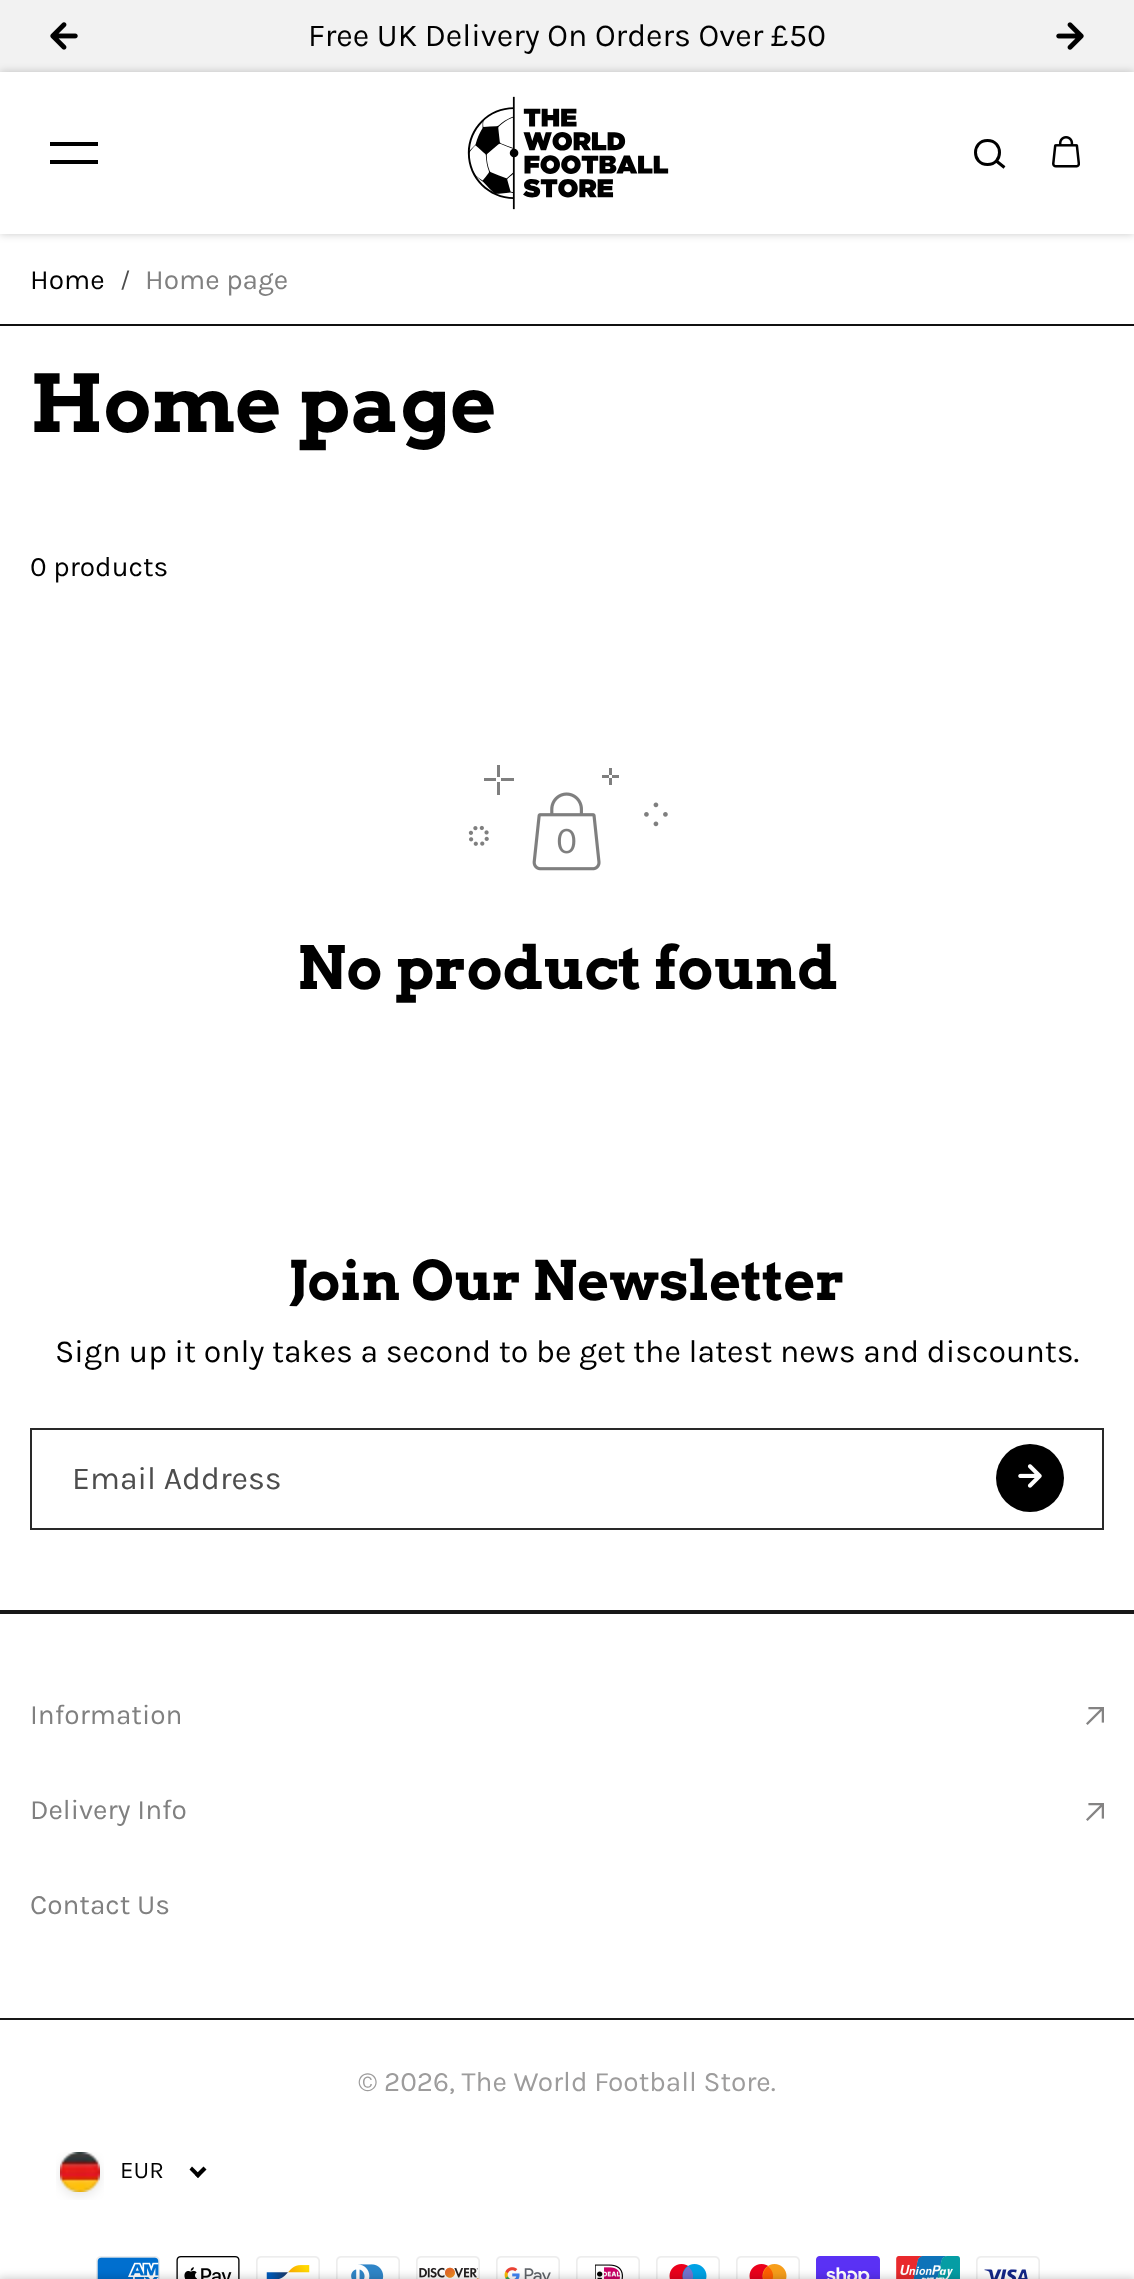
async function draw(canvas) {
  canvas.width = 1134
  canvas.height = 2279
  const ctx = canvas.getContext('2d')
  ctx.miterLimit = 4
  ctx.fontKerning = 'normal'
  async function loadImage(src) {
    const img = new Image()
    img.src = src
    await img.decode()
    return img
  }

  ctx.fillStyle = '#fff'
  ctx.fillRect(0, 0, 1134, 2279)
  ctx.fillStyle = '#f2f2f2'
  ctx.fillRect(0, 0, 1134, 72)
  ctx.drawImage(await loadImage('image0.png'), 50, 22, 28, 28)
  ctx.font = '32px Karla'
  ctx.fillStyle = '#000'
  ctx.fillText('Free UK Delivery On Orders Over £50', 308, 46)
  ctx.drawImage(await loadImage('image1.png'), 1056, 22, 28, 28)
  ctx.save()
  ctx.beginPath()
  ctx.moveTo(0, 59)
  ctx.lineTo(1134, 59)
  ctx.lineTo(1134, 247)
  ctx.lineTo(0, 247)
  ctx.closePath()
  ctx.moveTo(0, 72)
  ctx.lineTo(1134, 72)
  ctx.lineTo(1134, 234)
  ctx.lineTo(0, 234)
  ctx.closePath()
  ctx.clip('evenodd')
  ctx.fillStyle = '#00000036'
  ctx.filter = 'blur(4px)'
  ctx.beginPath()
  ctx.rect(0, 72, 1134, 162)
  ctx.fill()
  ctx.filter = 'none'
  ctx.restore()
  ctx.fillRect(50, 142, 48, 4)
  ctx.fillRect(50, 160, 48, 4)
  ctx.drawImage(await loadImage('image2.png'), 467, 96, 202, 114)
  ctx.beginPath()
  ctx.moveTo(987.5, 164.5)
  ctx.bezierCurveTo(1003.5, 164.5, 1003.5, 140.5, 987.5, 140.5)
  ctx.bezierCurveTo(971.5, 140.5, 971.5, 164.5, 987.5, 164.5)
  ctx.closePath()
  ctx.moveTo(997, 161.5)
  ctx.lineTo(1004.5, 167.5)
  ctx.strokeStyle = '#000'
  ctx.lineWidth = 3
  ctx.stroke()
  ctx.drawImage(await loadImage('image3.png'), 1052, 136, 28, 32)
  ctx.fillStyle = '#101010'
  ctx.fillRect(0, 324, 1134, 2)
  ctx.font = '28px Karla'
  ctx.fillStyle = '#000'
  ctx.fillText('Home', 30, 289)
  ctx.font = '24px Karla'
  ctx.fillStyle = '#4d4d4d'
  ctx.fillText('/', 120, 288)
  ctx.font = '28px Karla'
  ctx.fillStyle = '#808080'
  ctx.fillText('Home page', 145, 289)
  ctx.font = 'bold 79.5px Arvo'
  ctx.fillStyle = '#000'
  ctx.fillText('Home page', 30, 432)
  ctx.font = '28px Karla'
  ctx.fillText('0 products', 30, 576)
  ctx.drawImage(await loadImage('image4.png'), 468, 765, 200, 106)
  ctx.font = 'bold 59.5px Arvo'
  ctx.fillText('No product found', 297, 989)
  ctx.font = 'bold 54.5px Arvo'
  ctx.fillText('Join Our Newsletter', 289, 1300)
  ctx.font = '32px Karla'
  ctx.fillText('Sign up it only takes a second to be get the latest news and discounts.', 55, 1362)
  ctx.strokeStyle = '#292929'
  ctx.lineWidth = 2
  ctx.strokeRect(31, 1429, 1072, 100)
  ctx.fillStyle = '#4d4d4d'
  ctx.fillText('Email Address', 72, 1489)
  ctx.fillStyle = '#000'
  ctx.beginPath()
  ctx.arc(1030, 1478, 34, 0, 2 * Math.PI)
  ctx.fill()
  ctx.drawImage(await loadImage('image5.png'), 1018, 1464, 24, 24)
  ctx.fillStyle = '#181818'
  ctx.fillRect(0, 1610, 1134, 4)
  ctx.font = '28px Karla'
  ctx.fillStyle = '#808080'
  ctx.fillText('Information', 30, 1724)
  ctx.drawImage(await loadImage('image6.png'), 1086, 1707, 18, 18)
  ctx.fillText('Delivery Info', 30, 1819)
  ctx.drawImage(await loadImage('image6.png'), 1086, 1803, 18, 18)
  ctx.fillText('Contact Us', 30, 1914)
  ctx.fillStyle = '#181818'
  ctx.fillRect(0, 2018, 1134, 2)
  ctx.fillStyle = '#9d9c9c'
  ctx.fillText('© 2026, The World Football Store.', 358, 2091)
  ctx.drawImage(await loadImage('image7.png'), 56, 2152, 48, 48)
  ctx.font = '24px Karla'
  ctx.fillStyle = '#000'
  ctx.fillText('EUR', 120, 2178)
  ctx.beginPath()
  ctx.moveTo(203.5, 2166.5)
  ctx.lineTo(206.5, 2169.5)
  ctx.lineTo(198, 2178)
  ctx.lineTo(195, 2175)
  ctx.closePath()
  ctx.fill()
  ctx.beginPath()
  ctx.moveTo(192, 2166.5)
  ctx.lineTo(200.5, 2175)
  ctx.lineTo(198, 2178)
  ctx.lineTo(189.5, 2169.5)
  ctx.closePath()
  ctx.fill()
  ctx.drawImage(await loadImage('image8.png'), 96, 2256, 64, 23)
  ctx.drawImage(await loadImage('image9.png'), 176, 2256, 64, 23)
  ctx.drawImage(await loadImage('image10.png'), 256, 2256, 64, 23)
  ctx.drawImage(await loadImage('image11.png'), 336, 2256, 64, 23)
  ctx.drawImage(await loadImage('image12.png'), 416, 2256, 64, 23)
  ctx.drawImage(await loadImage('image13.png'), 496, 2256, 64, 23)
  ctx.drawImage(await loadImage('image14.png'), 576, 2256, 64, 23)
  ctx.drawImage(await loadImage('image15.png'), 656, 2256, 64, 23)
  ctx.drawImage(await loadImage('image16.png'), 736, 2256, 64, 23)
  ctx.drawImage(await loadImage('image17.png'), 816, 2256, 64, 23)
  ctx.drawImage(await loadImage('image18.png'), 896, 2256, 64, 23)
  ctx.drawImage(await loadImage('image19.png'), 976, 2256, 64, 23)
  ctx.fillStyle = '#00000033'
  ctx.filter = 'blur(5px)'
  ctx.beginPath()
  ctx.rect(-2, 2278, 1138, 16)
  ctx.fill()
  ctx.filter = 'none'
}

draw(document.querySelector('canvas'))
